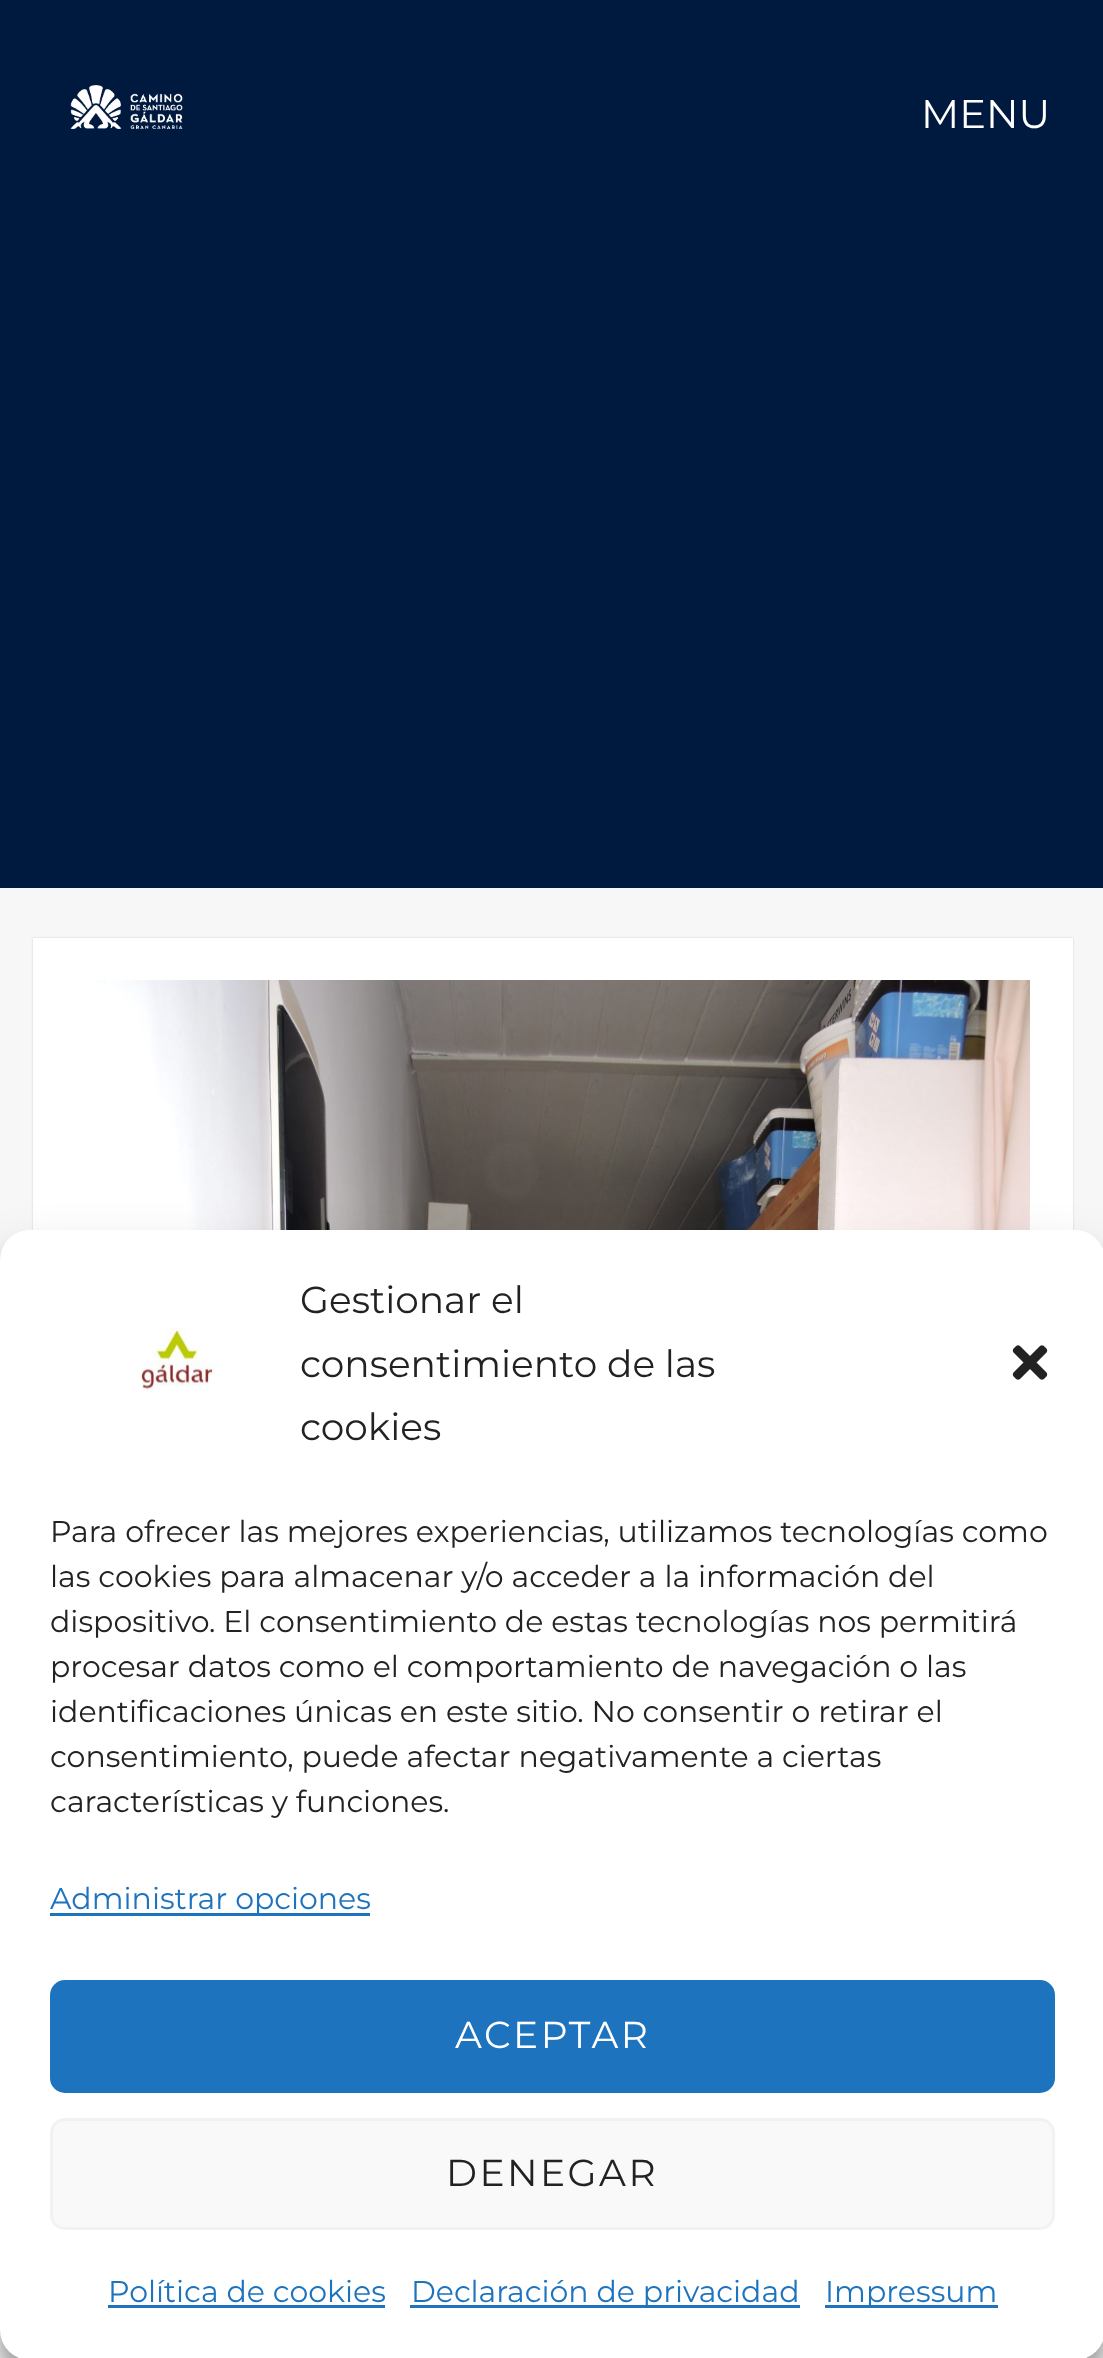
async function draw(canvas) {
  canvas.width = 1103
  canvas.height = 2358
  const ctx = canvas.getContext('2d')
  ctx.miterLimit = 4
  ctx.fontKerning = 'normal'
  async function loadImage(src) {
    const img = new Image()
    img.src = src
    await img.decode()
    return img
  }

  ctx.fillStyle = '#f7f7f7'
  ctx.fillRect(0, 0, 1103, 2358)
  ctx.fillStyle = '#00193f'
  ctx.fillRect(0, 0, 1103, 888)
  ctx.drawImage(await loadImage('image0.png'), 70, 85, 113, 45)
  ctx.font = '40px Montserrat'
  ctx.fillStyle = '#fff'
  ctx.fillText('MENU', 921, 128)
  ctx.fillStyle = '#00000026'
  ctx.filter = 'blur(1px)'
  ctx.beginPath()
  ctx.rect(33, 938, 1040, 1357)
  ctx.fill()
  ctx.filter = 'none'
  ctx.fillStyle = '#fff'
  ctx.fillRect(33, 938, 1040, 292)
  ctx.drawImage(await loadImage('image1.png'), 75, 980, 955, 250)
  ctx.fillStyle = '#0000003b'
  ctx.filter = 'blur(7.5px)'
  ctx.beginPath()
  ctx.roundRect(0, 1245, 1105, 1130, 30)
  ctx.fill()
  ctx.filter = 'none'
  ctx.fillStyle = '#00000030'
  ctx.filter = 'blur(25px)'
  ctx.beginPath()
  ctx.roundRect(0, 1255, 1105, 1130, 30)
  ctx.fill()
  ctx.filter = 'none'
  ctx.fillStyle = '#fff'
  ctx.beginPath()
  ctx.roundRect(0, 1230, 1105, 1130, 30)
  ctx.fill()
  ctx.drawImage(await loadImage('image2.png'), 141, 1327, 80, 66)
  ctx.font = '37.5px Montserrat'
  ctx.fillStyle = '#222'
  ctx.fillText('Gestionar el', 300, 1313)
  ctx.fillText('consentimiento de las', 300, 1377)
  ctx.fillText('cookies', 300, 1440)
  ctx.drawImage(await loadImage('image3.png'), 1012, 1345, 36, 35)
  ctx.font = '30px Montserrat'
  ctx.fillText('Para ofrecer las mejores experiencias, utilizamos tecnologías como', 50, 1542)
  ctx.fillText('las cookies para almacenar y/o acceder a la información del', 50, 1587)
  ctx.fillText('dispositivo. El consentimiento de estas tecnologías nos permitirá', 50, 1632)
  ctx.fillText('procesar datos como el comportamiento de navegación o las', 50, 1677)
  ctx.fillText('identificaciones únicas en este sitio. No consentir o retirar el', 50, 1722)
  ctx.fillText('consentimiento, puede afectar negativamente a ciertas', 50, 1767)
  ctx.fillText('características y funciones.', 50, 1812)
  ctx.fillStyle = '#1e73be'
  ctx.fillRect(50, 1913, 320, 3)
  ctx.fillText('Administrar opciones', 50, 1909)
  ctx.beginPath()
  ctx.roundRect(51.5, 1981.5, 1002, 110, 13.5)
  ctx.fill()
  ctx.strokeStyle = '#1e73be'
  ctx.lineWidth = 3
  ctx.stroke()
  ctx.letterSpacing = '2.5px'
  ctx.font = '37.5px Montserrat'
  ctx.fillStyle = '#fff'
  ctx.fillText('ACEPTAR', 455, 2048)
  ctx.fillStyle = '#f9f9f9'
  ctx.beginPath()
  ctx.roundRect(51.5, 2119.5, 1002, 109, 13.5)
  ctx.fill()
  ctx.strokeStyle = '#f2f2f2'
  ctx.stroke()
  ctx.fillStyle = '#222'
  ctx.fillText('DENEGAR', 446, 2186)
  ctx.letterSpacing = '0px'
  ctx.font = '30px Montserrat'
  ctx.fillStyle = '#1e73be'
  ctx.fillText('Política de cookies', 108, 2302)
  ctx.fillRect(108, 2305, 277, 3)
  ctx.fillRect(410, 2305, 390, 3)
  ctx.fillText('Declaración de privacidad', 411, 2302)
  ctx.fillRect(825, 2305, 173, 3)
  ctx.fillText('Impressum', 825, 2302)
}

draw(document.querySelector('canvas'))
